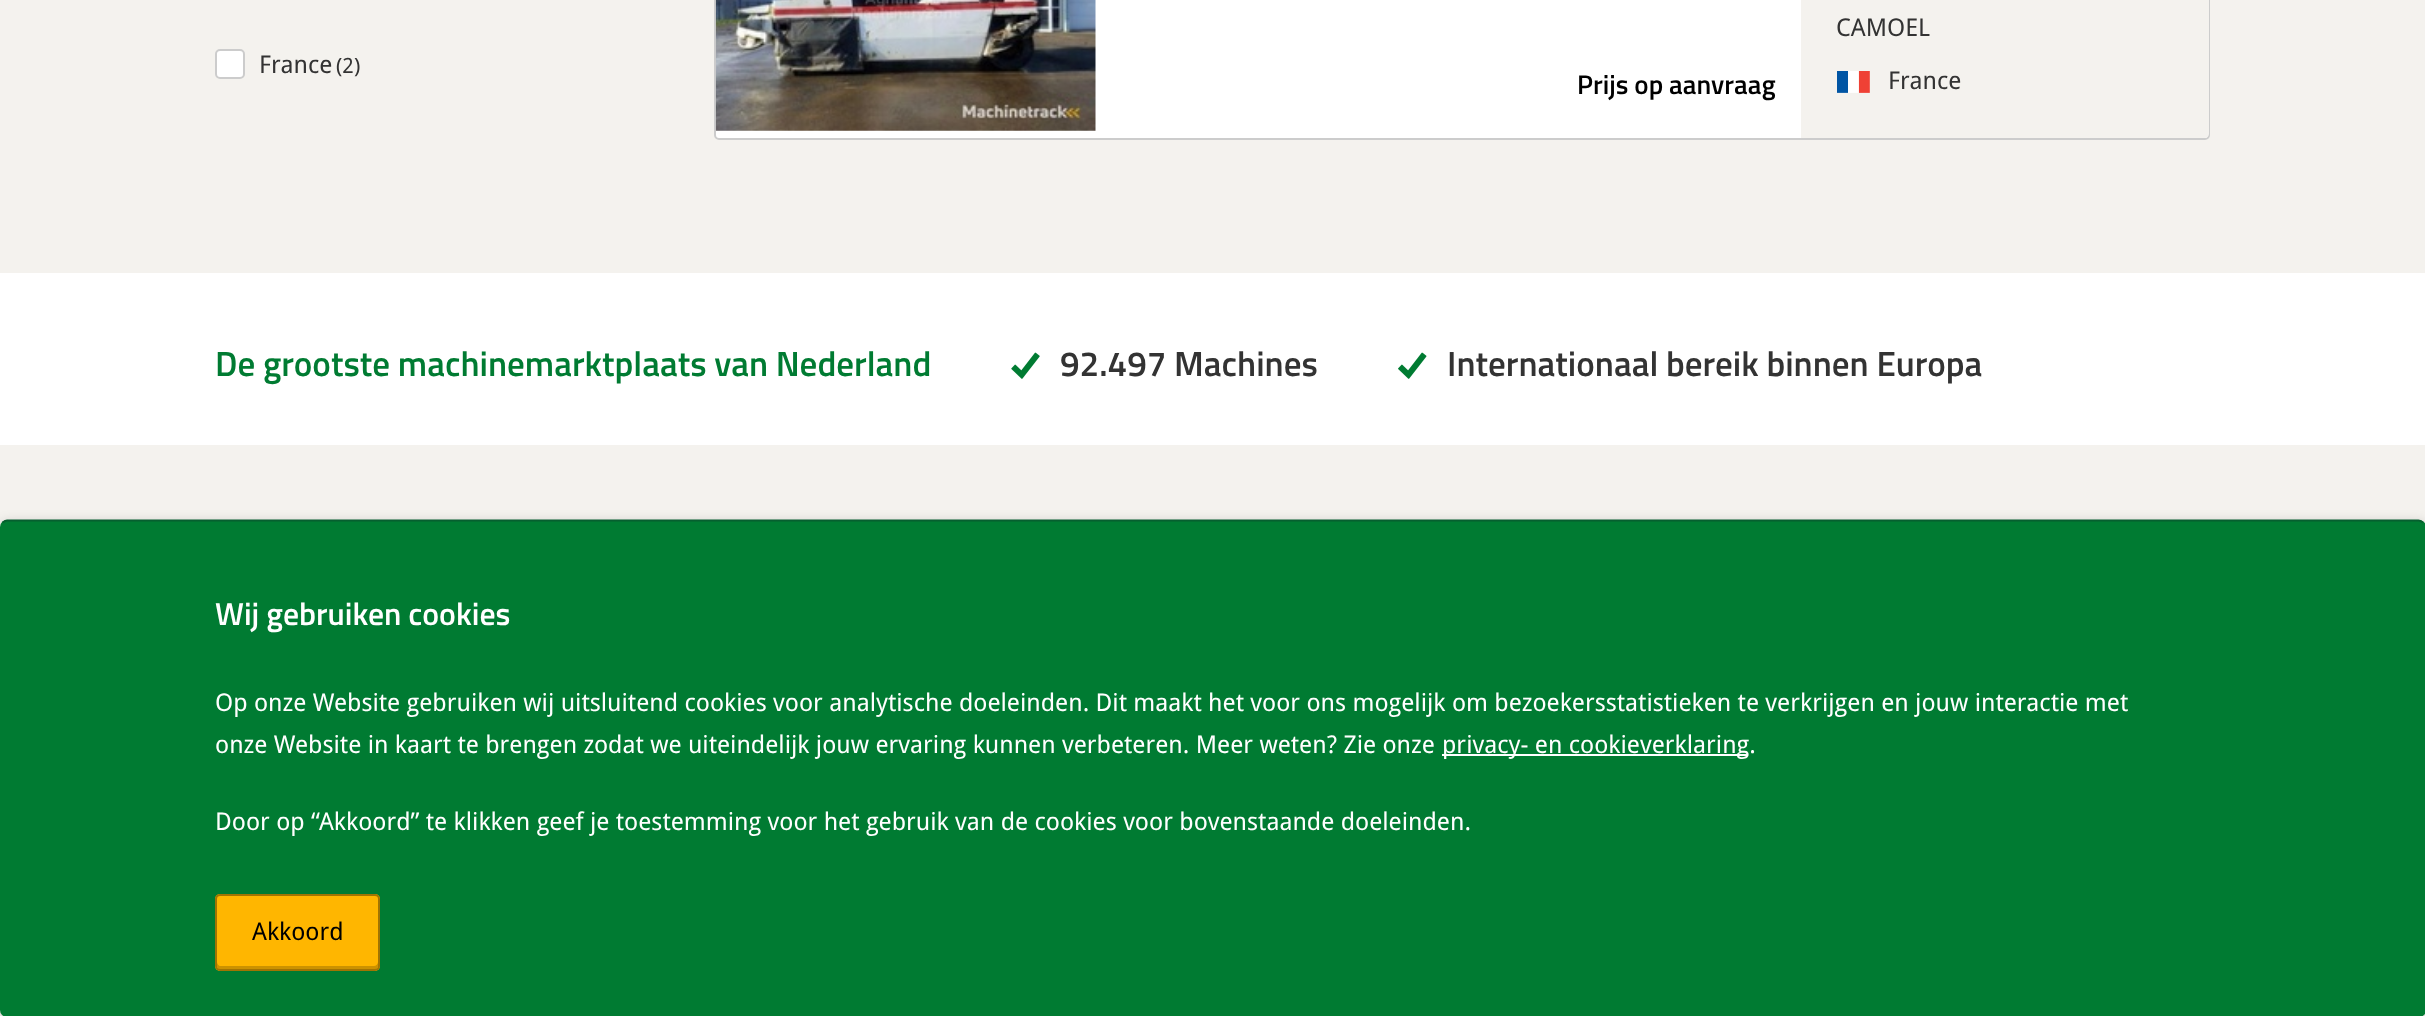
async function draw(canvas) {
  canvas.width = 2425
  canvas.height = 1016
  const ctx = canvas.getContext('2d')
  ctx.miterLimit = 4
  ctx.fontKerning = 'normal'
  async function loadImage(src) {
    const img = new Image()
    img.src = src
    await img.decode()
    return img
  }

  ctx.fillStyle = '#fff'
  ctx.fillRect(0, 0, 2425, 1016)
  ctx.fillStyle = '#f4f2ee'
  ctx.fillRect(0, 0, 2425, 273)
  ctx.fillStyle = '#fff'
  ctx.beginPath()
  ctx.roundRect(216, 50, 28, 28, 4)
  ctx.fill()
  ctx.strokeStyle = '#ccc'
  ctx.lineWidth = 2
  ctx.stroke()
  ctx.font = '24.5px Droid Sans'
  ctx.fillStyle = '#333'
  ctx.fillText('France', 259, 73)
  ctx.font = '21px Droid Sans'
  ctx.fillText('(2)', 336, 73)
  ctx.fillStyle = '#fff'
  ctx.beginPath()
  ctx.roundRect(715, -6, 1494, 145, 4)
  ctx.fill()
  ctx.stroke()
  ctx.drawImage(await loadImage('image0.png'), 715, 0, 381, 131)
  ctx.font = '600 27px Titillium'
  ctx.fillStyle = '#000'
  ctx.fillText('Prijs op aanvraag', 1577, 94)
  ctx.fillStyle = '#f4f2ee'
  ctx.beginPath()
  ctx.moveTo(1801, -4)
  ctx.lineTo(2205, -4)
  ctx.bezierCurveTo(2207, -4, 2209, -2, 2209, 0)
  ctx.lineTo(2209, 134)
  ctx.bezierCurveTo(2209, 136, 2207, 138, 2205, 138)
  ctx.lineTo(1801, 138)
  ctx.closePath()
  ctx.fill()
  ctx.font = '24.5px Droid Sans'
  ctx.fillStyle = '#333'
  ctx.fillText('CAMOEL', 1836, 36)
  ctx.drawImage(await loadImage('image1.png'), 1837, 71, 33, 22)
  ctx.fillText('France', 1888, 89)
  ctx.font = '600 35px Titillium'
  ctx.fillStyle = '#007b32'
  ctx.fillText('De grootste machinemarktplaats van Nederland', 215, 376)
  ctx.drawImage(await loadImage('image2.png'), 1011, 352, 29, 27)
  ctx.fillStyle = '#333'
  ctx.fillText('92.497 Machines', 1060, 376)
  ctx.drawImage(await loadImage('image3.png'), 1398, 352, 29, 27)
  ctx.fillText('Internationaal bereik binnen Europa', 1447, 376)
  ctx.fillStyle = '#f4f2ee'
  ctx.fillRect(0, 445, 2425, 571)
  ctx.fillStyle = '#0000002e'
  ctx.filter = 'blur(6px)'
  ctx.beginPath()
  ctx.roundRect(0, 522, 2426, 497, 7)
  ctx.fill()
  ctx.filter = 'none'
  ctx.fillStyle = '#007b32'
  ctx.beginPath()
  ctx.roundRect(0, 520, 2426, 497, 7)
  ctx.fill()
  ctx.beginPath()
  ctx.moveTo(2.5, 522.5)
  ctx.bezierCurveTo(4, 521.5, 5.5, 520.5, 7, 520.5)
  ctx.lineTo(2418.5, 520.5)
  ctx.bezierCurveTo(2420, 520.5, 2421.5, 521.5, 2423, 522.5)
  ctx.strokeStyle = '#065f2f'
  ctx.lineWidth = 1.8
  ctx.stroke()
  ctx.font = '600 31.75px Titillium'
  ctx.fillStyle = '#fff'
  ctx.fillText('Wij gebruiken cookies', 215, 625)
  ctx.font = '24.5px Droid Sans'
  ctx.fillText('Op onze Website gebruiken wij uitsluitend cookies voor analytische doeleinden. Dit maakt het voor ons mogelijk om bezoekersstatistieken te verkrijgen en jouw interactie met', 215, 711)
  ctx.fillText('onze Website in kaart te brengen zodat we uiteindelijk jouw ervaring kunnen verbeteren. Meer weten? Zie onze', 215, 753)
  ctx.fillRect(1442, 754, 306, 2)
  ctx.fillText('privacy- en cookieverklaring.', 1442, 753)
  ctx.fillText('Door op “Akkoord” te klikken geef je toestemming voor het gebruik van de cookies voor bovenstaande doeleinden.', 215, 830)
  ctx.fillStyle = '#ffb600'
  ctx.beginPath()
  ctx.roundRect(215, 894, 165, 77, 5)
  ctx.fill()
  ctx.fillStyle = '#cc9200'
  ctx.beginPath()
  ctx.moveTo(217, 962)
  ctx.lineTo(217, 966)
  ctx.bezierCurveTo(217, 968, 219, 970, 221, 970)
  ctx.lineTo(374, 970)
  ctx.bezierCurveTo(376, 970, 378, 968, 378, 966)
  ctx.lineTo(378, 962)
  ctx.bezierCurveTo(378, 964, 376, 966, 374, 966)
  ctx.lineTo(220, 966)
  ctx.bezierCurveTo(219, 966, 217, 964, 217, 962)
  ctx.closePath()
  ctx.fill()
  ctx.beginPath()
  ctx.roundRect(216, 895, 163, 75, 4)
  ctx.strokeStyle = '#a27402'
  ctx.lineWidth = 2
  ctx.stroke()
  ctx.fillStyle = '#000'
  ctx.fillText('Akkoord', 252, 940)
}

draw(document.querySelector('canvas'))
